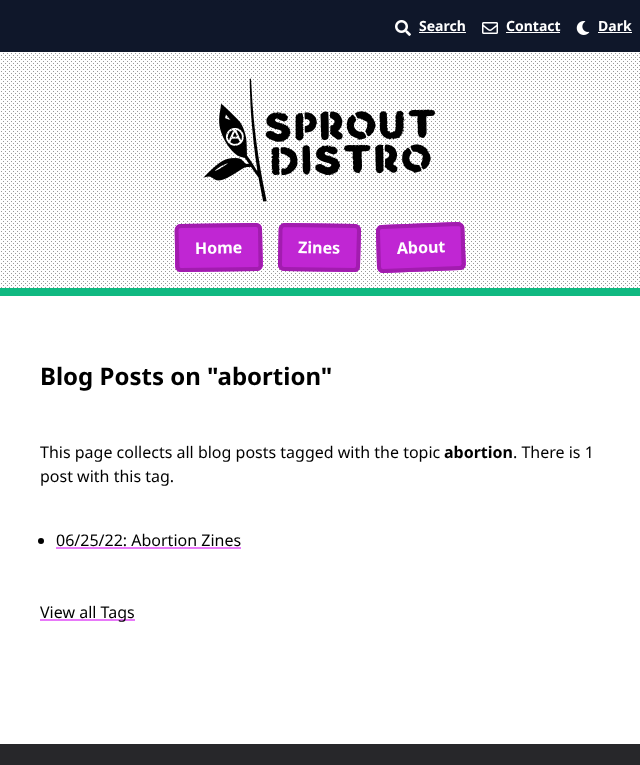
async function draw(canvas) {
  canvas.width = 640
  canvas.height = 765
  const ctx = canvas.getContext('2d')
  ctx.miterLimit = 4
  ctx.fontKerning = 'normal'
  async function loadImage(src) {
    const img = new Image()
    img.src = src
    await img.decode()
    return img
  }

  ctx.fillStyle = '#fff'
  ctx.fillRect(0, 0, 640, 765)
  ctx.drawImage(await loadImage('image0.png'), 1, 53, 639, 235)
  ctx.fillStyle = '#10b981'
  ctx.fillRect(0, 288, 640, 8)
  ctx.fillStyle = '#0f172a'
  ctx.fillRect(0, 0, 640, 52)
  ctx.drawImage(await loadImage('image1.png'), 395, 20, 16, 16)
  ctx.font = 'bold 14px Noto Sans'
  ctx.fillStyle = '#fff'
  ctx.fillText('Search', 419, 31)
  ctx.fillRect(419, 32, 47, 1)
  ctx.drawImage(await loadImage('image2.png'), 482, 22, 16, 12)
  ctx.fillText('Contact', 506, 31)
  ctx.fillRect(506, 32, 54, 1)
  ctx.drawImage(await loadImage('image3.png'), 576, 21, 14, 14)
  ctx.fillText('Dark', 598, 31)
  ctx.fillRect(598, 32, 34, 1)
  ctx.drawImage(await loadImage('image4.png'), 204, 78, 231, 124)
  ctx.fillStyle = '#c026d3'
  ctx.beginPath()
  ctx.moveTo(181, 224)
  ctx.lineTo(256, 223)
  ctx.bezierCurveTo(259, 223, 262, 225, 262, 229)
  ctx.lineTo(263, 265)
  ctx.bezierCurveTo(263, 268, 260, 271, 257, 271)
  ctx.lineTo(181, 272)
  ctx.bezierCurveTo(178, 272, 175, 270, 175, 266)
  ctx.lineTo(175, 230)
  ctx.bezierCurveTo(175, 227, 177, 224, 181, 224)
  ctx.closePath()
  ctx.fill()
  ctx.beginPath()
  ctx.moveTo(180.5, 226)
  ctx.lineTo(256, 225)
  ctx.bezierCurveTo(258, 225, 260, 226.5, 260, 229)
  ctx.lineTo(260.5, 265)
  ctx.bezierCurveTo(261, 267, 259, 269, 257, 269)
  ctx.lineTo(181.5, 270)
  ctx.bezierCurveTo(179, 270, 177.5, 268.5, 177.5, 266.5)
  ctx.lineTo(176.5, 230.5)
  ctx.bezierCurveTo(176.5, 228, 178.5, 226, 180.5, 226)
  ctx.closePath()
  ctx.strokeStyle = '#a21caf'
  ctx.lineWidth = 4
  ctx.stroke()
  ctx.font = 'bold 16px Noto Sans'
  ctx.fillStyle = '#fff'
  ctx.save()
  ctx.translate(195, 254)
  ctx.rotate(-1 * Math.PI / 180)
  ctx.fillText('Home', 0, 0)
  ctx.restore()
  ctx.fillStyle = '#c026d3'
  ctx.beginPath()
  ctx.moveTo(285, 223)
  ctx.lineTo(355, 224)
  ctx.bezierCurveTo(358, 224, 361, 227, 361, 230)
  ctx.lineTo(360, 266)
  ctx.bezierCurveTo(360, 270, 357, 272, 354, 272)
  ctx.lineTo(284, 271)
  ctx.bezierCurveTo(281, 271, 278, 268, 278, 265)
  ctx.lineTo(279, 229)
  ctx.bezierCurveTo(279, 226, 282, 223, 285, 223)
  ctx.closePath()
  ctx.fill()
  ctx.beginPath()
  ctx.moveTo(285, 225)
  ctx.lineTo(355, 226)
  ctx.bezierCurveTo(357, 226, 359, 228, 359, 230)
  ctx.lineTo(358, 266)
  ctx.bezierCurveTo(358, 268.5, 356.5, 270, 354, 270)
  ctx.lineTo(284, 269)
  ctx.bezierCurveTo(282, 269, 280, 267, 280, 265)
  ctx.lineTo(280.5, 229)
  ctx.bezierCurveTo(281, 226.5, 282.5, 225, 285, 225)
  ctx.closePath()
  ctx.stroke()
  ctx.fillStyle = '#fff'
  ctx.save()
  ctx.translate(298, 253)
  ctx.rotate(1 * Math.PI / 180)
  ctx.fillText('Zines', 0, 0)
  ctx.restore()
  ctx.fillStyle = '#c026d3'
  ctx.beginPath()
  ctx.moveTo(382, 225)
  ctx.lineTo(458, 222)
  ctx.bezierCurveTo(461, 222, 464, 225, 464, 228)
  ctx.lineTo(466, 264)
  ctx.bezierCurveTo(466, 267, 463, 270, 460, 270)
  ctx.lineTo(383, 273)
  ctx.bezierCurveTo(380, 273, 377, 270, 377, 267)
  ctx.lineTo(376, 231)
  ctx.bezierCurveTo(376, 228, 378, 225, 382, 225)
  ctx.closePath()
  ctx.fill()
  ctx.beginPath()
  ctx.moveTo(381.5, 227)
  ctx.lineTo(458, 224)
  ctx.bezierCurveTo(460.5, 224, 462.5, 226, 462.5, 228)
  ctx.lineTo(463.5, 264)
  ctx.bezierCurveTo(463.5, 266.5, 462, 268, 459.5, 268)
  ctx.lineTo(383, 271)
  ctx.bezierCurveTo(381, 271, 379, 269, 379, 267)
  ctx.lineTo(378, 231)
  ctx.bezierCurveTo(378, 229, 379.5, 227, 381.5, 227)
  ctx.closePath()
  ctx.stroke()
  ctx.fillStyle = '#fff'
  ctx.save()
  ctx.translate(397, 254)
  ctx.rotate(-2 * Math.PI / 180)
  ctx.fillText('About', 0, 0)
  ctx.restore()
  ctx.font = 'bold 24px Noto Sans'
  ctx.fillStyle = '#000'
  ctx.fillText('Blog Posts on "abortion"', 40, 385)
  ctx.font = '16px Noto Sans'
  ctx.fillText('This page collects all blog posts tagged with the topic', 40, 458)
  ctx.font = 'bold 16px Noto Sans'
  ctx.fillText('abortion', 444, 458)
  ctx.font = '16px Noto Sans'
  ctx.fillText('. There is 1', 513, 458)
  ctx.fillText('post with this tag.', 40, 482)
  ctx.beginPath()
  ctx.arc(41, 541, 3, 0, 2 * Math.PI)
  ctx.fill()
  ctx.fillText('06/25/22: Abortion Zines', 56, 546)
  ctx.fillStyle = '#e879f9'
  ctx.fillRect(56, 547, 185, 2)
  ctx.fillRect(40, 619, 95, 2)
  ctx.fillStyle = '#000'
  ctx.fillText('View all Tags', 40, 618)
  ctx.fillStyle = '#27272a'
  ctx.fillRect(0, 744, 640, 21)
}

draw(document.querySelector('canvas'))
